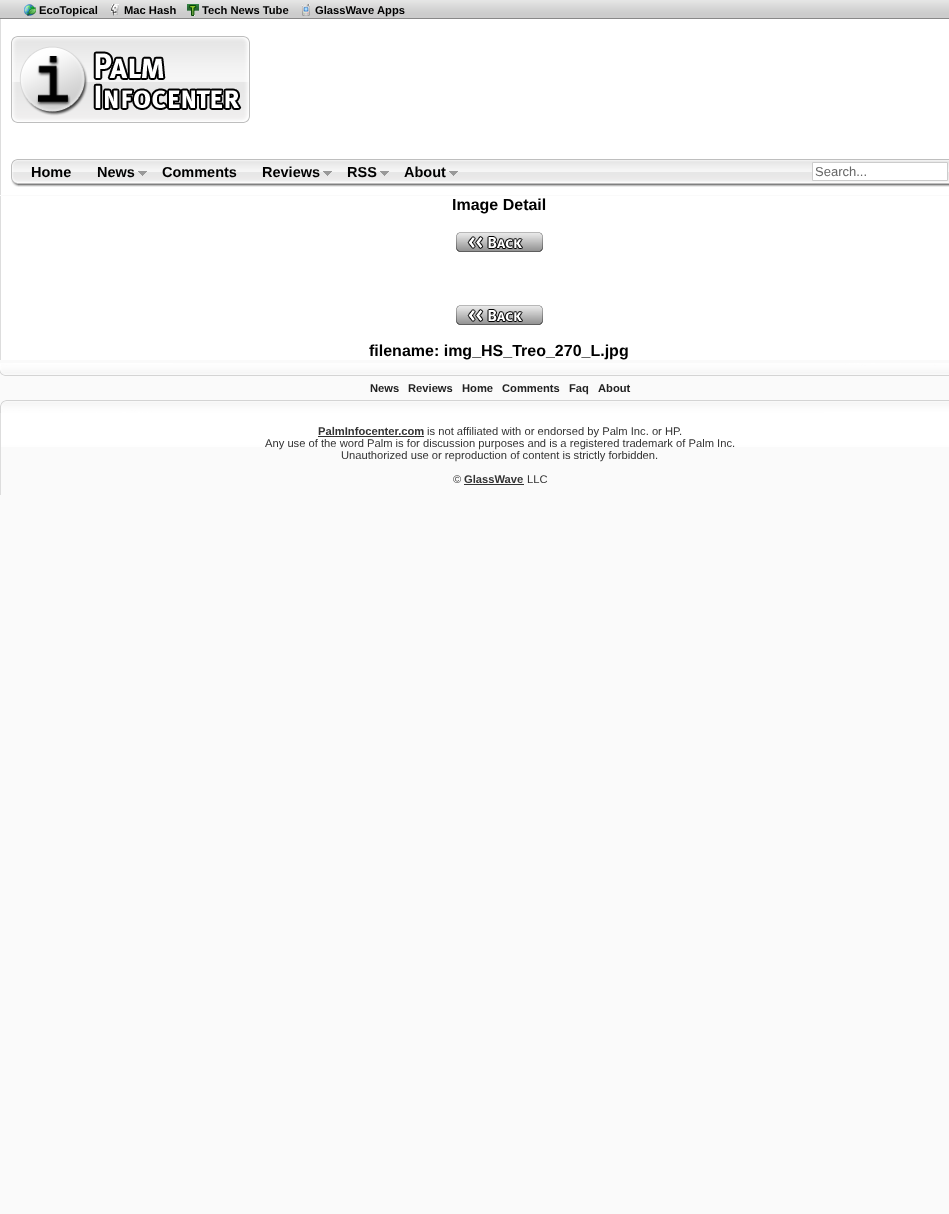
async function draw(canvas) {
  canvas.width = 949
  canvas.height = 1214
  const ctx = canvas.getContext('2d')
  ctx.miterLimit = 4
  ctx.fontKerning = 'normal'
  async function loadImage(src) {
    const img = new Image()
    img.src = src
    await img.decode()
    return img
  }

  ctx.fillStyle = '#fafafa'
  ctx.fillRect(0, 0, 949, 1214)
  ctx.drawImage(await loadImage('image0.png'), 0, 0, 949, 18)
  ctx.fillStyle = '#888'
  ctx.fillRect(0, 18, 949, 1)
  ctx.drawImage(await loadImage('image1.png'), 24, 4, 12, 12)
  ctx.font = 'bold 11.2px Liberation Sans'
  ctx.fillStyle = '#000'
  ctx.fillText('EcoTopical', 39, 14)
  ctx.drawImage(await loadImage('image2.png'), 111, 4, 8, 12)
  ctx.fillText('Mac Hash', 124, 14)
  ctx.drawImage(await loadImage('image3.png'), 187, 4, 12, 12)
  ctx.fillText('Tech News Tube', 202, 14)
  ctx.drawImage(await loadImage('image4.png'), 302, 4, 8, 12)
  ctx.fillText('GlassWave Apps', 315, 14)
  ctx.fillStyle = '#fff'
  ctx.fillRect(1, 19, 948, 176)
  ctx.fillStyle = '#ddd'
  ctx.fillRect(0, 19, 1, 176)
  ctx.drawImage(await loadImage('image5.png'), 11, 36, 239, 87)
  ctx.drawImage(await loadImage('image6.png'), 18, 159, 931, 28)
  ctx.drawImage(await loadImage('image7.png'), 11, 159, 7, 28)
  ctx.font = 'bold 14.5px Liberation Sans'
  ctx.fillStyle = '#000'
  ctx.fillText('Home', 31, 177)
  ctx.fillText('News', 97, 177)
  ctx.drawImage(await loadImage('image8.png'), 138, 171, 9, 5)
  ctx.fillText('Comments', 162, 177)
  ctx.fillText('Reviews', 262, 177)
  ctx.drawImage(await loadImage('image8.png'), 323, 171, 9, 5)
  ctx.fillText('RSS', 347, 177)
  ctx.drawImage(await loadImage('image8.png'), 380, 171, 9, 5)
  ctx.fillText('About', 404, 177)
  ctx.drawImage(await loadImage('image8.png'), 449, 171, 9, 5)
  ctx.fillStyle = '#fff'
  ctx.beginPath()
  ctx.rect(812.5, 162.5, 135, 18)
  ctx.fill()
  ctx.strokeStyle = '#ccc'
  ctx.stroke()
  ctx.font = '13px Liberation Sans'
  ctx.fillStyle = '#666'
  ctx.fillText('Search...', 815, 176)
  ctx.fillStyle = '#fff'
  ctx.fillRect(1, 196, 948, 164)
  ctx.fillStyle = '#ddd'
  ctx.fillRect(0, 196, 1, 164)
  ctx.font = 'bold 16px Liberation Sans'
  ctx.fillStyle = '#000'
  ctx.fillText('Image Detail', 452, 210)
  ctx.drawImage(await loadImage('image9.png'), 456, 232, 87, 20)
  ctx.drawImage(await loadImage('image9.png'), 456, 305, 87, 20)
  ctx.fillText('filename: img_HS_Treo_270_L.jpg', 369, 356)
  ctx.drawImage(await loadImage('image10.png'), 0, 363, 949, 13)
  ctx.font = 'bold 11.2px Liberation Sans'
  ctx.fillStyle = '#222'
  ctx.fillText('News', 370, 392)
  ctx.fillText('Reviews', 408, 392)
  ctx.fillText('Home', 462, 392)
  ctx.fillText('Comments', 502, 392)
  ctx.fillText('Faq', 569, 392)
  ctx.fillText('About', 598, 392)
  ctx.drawImage(await loadImage('image11.png'), 0, 400, 949, 13)
  ctx.drawImage(await loadImage('image12.png'), 1, 413, 948, 34)
  ctx.fillStyle = '#ddd'
  ctx.fillRect(0, 413, 1, 82)
  ctx.fillStyle = '#333'
  ctx.fillText('PalmInfocenter.com', 318, 435)
  ctx.fillRect(318, 436, 106, 1)
  ctx.font = '11.2px Liberation Sans'
  ctx.fillText('is not affiliated with or endorsed by Palm Inc. or HP.', 427, 435)
  ctx.fillText('Any use of the word Palm is for discussion purposes and is a registered trademark of Palm Inc.', 265, 447)
  ctx.fillText('Unauthorized use or reproduction of content is strictly forbidden.', 341, 459)
  ctx.fillText('©', 453, 483)
  ctx.font = 'bold 11.2px Liberation Sans'
  ctx.fillText('GlassWave', 464, 483)
  ctx.fillRect(464, 484, 60, 1)
  ctx.font = '11.2px Liberation Sans'
  ctx.fillText('LLC', 527, 483)
}

draw(document.querySelector('canvas'))
